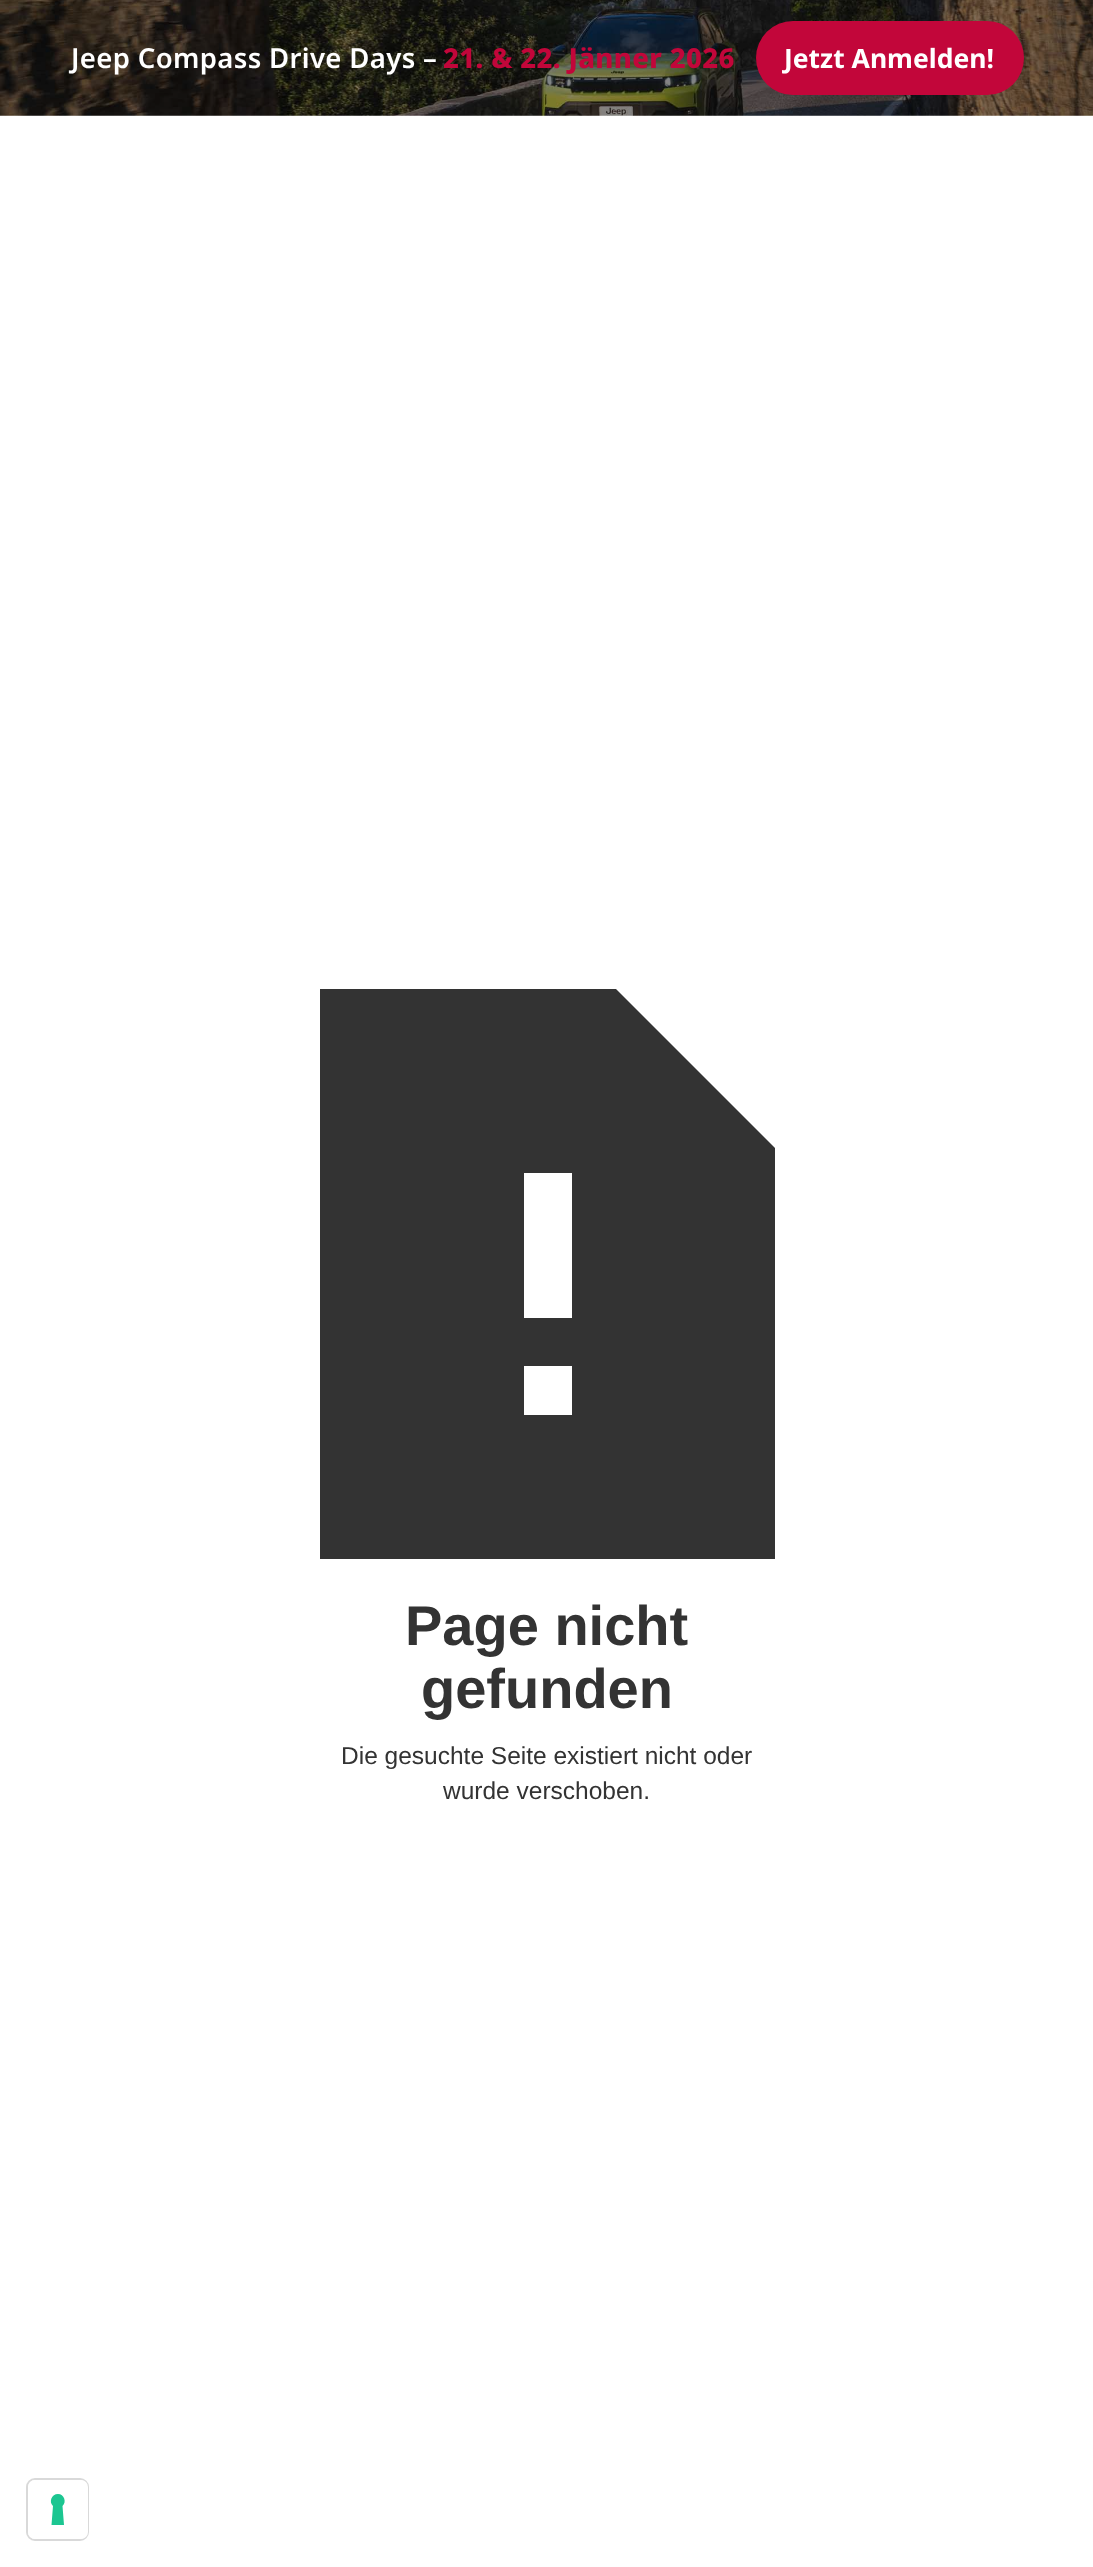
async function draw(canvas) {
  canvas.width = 1093
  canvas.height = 2567
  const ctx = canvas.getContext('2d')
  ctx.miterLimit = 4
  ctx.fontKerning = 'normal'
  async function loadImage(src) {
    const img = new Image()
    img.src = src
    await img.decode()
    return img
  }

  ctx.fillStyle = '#fff'
  ctx.fillRect(0, 0, 1093, 2567)
  ctx.drawImage(await loadImage('image0.png'), 0, 0, 1093, 116)
  ctx.letterSpacing = '0.35px'
  ctx.font = '600 27.5px Noto Sans'
  ctx.fillText('Jeep Compass Drive Days –', 71, 68)
  ctx.font = '800 27.5px Noto Sans'
  ctx.fillStyle = '#c2063a'
  ctx.fillText('21. & 22. Jänner 2026', 443, 68)
  ctx.beginPath()
  ctx.roundRect(756, 21, 268, 74, 37)
  ctx.fill()
  ctx.letterSpacing = '0px'
  ctx.font = 'bold 26.5px Noto Sans'
  ctx.fillStyle = '#fff'
  ctx.fillText('Jetzt Anmelden!', 784, 68)
  ctx.save()
  ctx.beginPath()
  ctx.rect(320, 989, 455, 570)
  ctx.clip()
  ctx.fillStyle = '#333'
  ctx.beginPath()
  ctx.moveTo(320, 989)
  ctx.lineTo(616, 989)
  ctx.lineTo(775, 1148)
  ctx.lineTo(775, 1560)
  ctx.lineTo(320, 1560)
  ctx.closePath()
  ctx.moveTo(524, 1173)
  ctx.lineTo(572, 1173)
  ctx.lineTo(572, 1318)
  ctx.lineTo(524, 1318)
  ctx.closePath()
  ctx.moveTo(524, 1366)
  ctx.lineTo(572, 1366)
  ctx.lineTo(572, 1415)
  ctx.lineTo(524, 1415)
  ctx.closePath()
  ctx.fill('evenodd')
  ctx.restore()
  ctx.font = 'bold 56px Liberation Sans'
  ctx.fillStyle = '#333'
  ctx.fillText('Page nicht', 405, 1645)
  ctx.fillText('gefunden', 421, 1708)
  ctx.font = '24.5px Liberation Sans'
  ctx.fillText('Die gesuchte Seite existiert nicht oder', 341, 1764)
  ctx.fillText('wurde verschoben.', 443, 1799)
  ctx.beginPath()
  ctx.roundRect(27, 2479, 61, 61, 8)
  ctx.strokeStyle = '#d9d9d9'
  ctx.lineWidth = 2
  ctx.stroke()
  ctx.fillStyle = '#fff'
  ctx.beginPath()
  ctx.roundRect(28, 2480, 60, 59, 7)
  ctx.fill()
  ctx.fillStyle = '#1cc691'
  ctx.beginPath()
  ctx.moveTo(58, 2494)
  ctx.bezierCurveTo(64, 2494, 67, 2502, 62.5, 2506)
  ctx.lineTo(64, 2525)
  ctx.lineTo(51.5, 2525)
  ctx.lineTo(53, 2506)
  ctx.bezierCurveTo(48.5, 2502, 51.5, 2494, 58, 2494)
  ctx.closePath()
  ctx.fill('evenodd')
}

draw(document.querySelector('canvas'))
